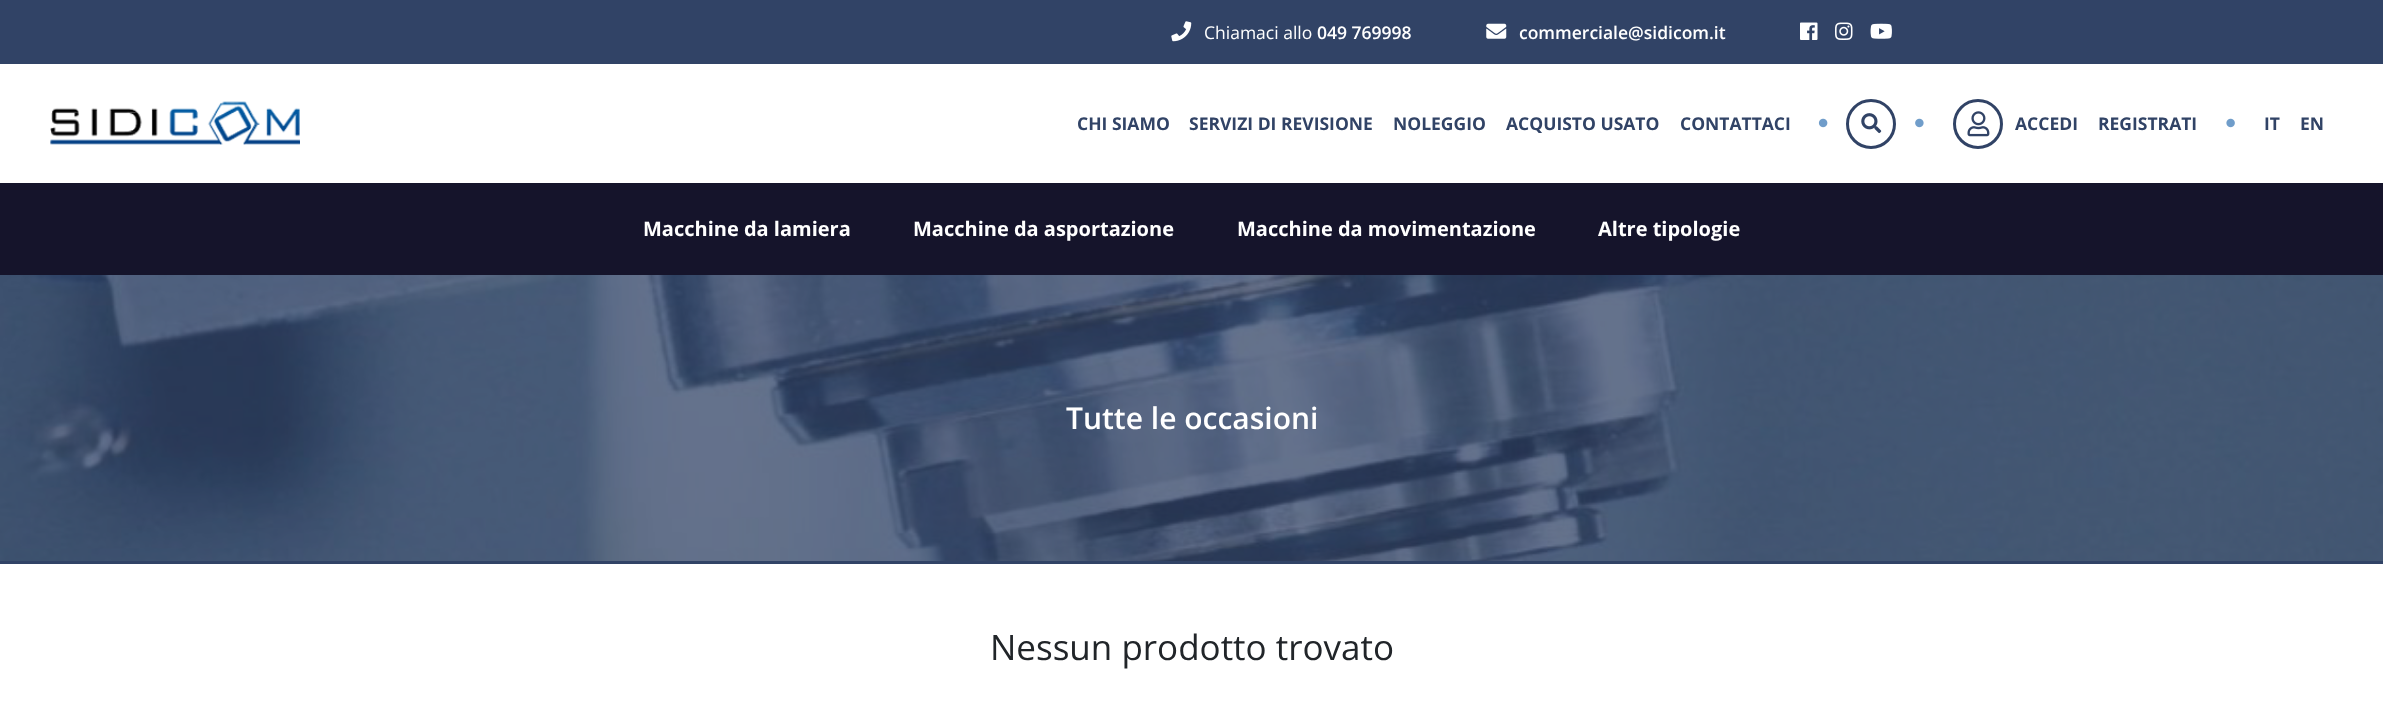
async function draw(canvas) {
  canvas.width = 2383
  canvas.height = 705
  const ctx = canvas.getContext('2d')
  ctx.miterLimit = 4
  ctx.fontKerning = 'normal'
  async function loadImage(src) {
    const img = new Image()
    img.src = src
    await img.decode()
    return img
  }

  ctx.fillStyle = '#fff'
  ctx.fillRect(0, 0, 2383, 705)
  ctx.fillStyle = '#314366'
  ctx.fillRect(0, 0, 2383, 64)
  ctx.drawImage(await loadImage('image0.png'), 1171, 21, 21, 21)
  ctx.font = '17.5px Open Sans'
  ctx.fillStyle = '#fff'
  ctx.fillText('Chiamaci allo', 1204, 39)
  ctx.font = '600 17.5px Open Sans'
  ctx.fillText('049 769998', 1317, 39)
  ctx.drawImage(await loadImage('image1.png'), 1486, 23, 21, 16)
  ctx.fillText('commerciale@sidicom.it', 1519, 39)
  ctx.drawImage(await loadImage('image2.png'), 1800, 22, 18, 18)
  ctx.drawImage(await loadImage('image3.png'), 1835, 22, 18, 18)
  ctx.drawImage(await loadImage('image4.png'), 1870, 23, 22, 16)
  ctx.drawImage(await loadImage('image5.png'), 50, 101, 250, 44)
  ctx.font = 'bold 17.5px Open Sans'
  ctx.fillStyle = '#314366'
  ctx.fillText('CHI SIAMO', 1077, 130)
  ctx.fillText('SERVIZI DI REVISIONE', 1189, 130)
  ctx.fillText('NOLEGGIO', 1393, 130)
  ctx.fillText('ACQUISTO USATO', 1506, 130)
  ctx.fillText('CONTATTACI', 1680, 130)
  ctx.drawImage(await loadImage('image6.png'), 1818, 118, 10, 10)
  ctx.beginPath()
  ctx.arc(1871, 124, 23.5, 0, 2 * Math.PI)
  ctx.strokeStyle = '#314366'
  ctx.lineWidth = 3
  ctx.stroke()
  ctx.drawImage(await loadImage('image7.png'), 1861, 113, 21, 21)
  ctx.drawImage(await loadImage('image8.png'), 1915, 118, 9, 10)
  ctx.beginPath()
  ctx.arc(1978, 124, 23.5, 0, 2 * Math.PI)
  ctx.stroke()
  ctx.drawImage(await loadImage('image9.png'), 1967, 111, 23, 26)
  ctx.fillText('ACCEDI', 2015, 130)
  ctx.fillText('REGISTRATI', 2098, 130)
  ctx.drawImage(await loadImage('image10.png'), 2226, 118, 9, 10)
  ctx.fillText('IT', 2264, 130)
  ctx.fillText('EN', 2300, 130)
  ctx.fillStyle = '#15142b'
  ctx.fillRect(0, 183, 2383, 92)
  ctx.font = 'bold 20px Open Sans'
  ctx.fillStyle = '#fff'
  ctx.fillText('Macchine da lamiera', 643, 236)
  ctx.fillText('Macchine da asportazione', 913, 236)
  ctx.fillText('Macchine da movimentazione', 1237, 236)
  ctx.fillText('Altre tipologie', 1598, 236)
  ctx.drawImage(await loadImage('image11.png'), 0, 275, 2383, 286)
  ctx.fillStyle = '#314366'
  ctx.fillRect(0, 561, 2383, 3)
  ctx.font = '600 30px Open Sans'
  ctx.fillStyle = '#fff'
  ctx.fillText('Tutte le occasioni', 1066, 429)
  ctx.font = '35px Open Sans'
  ctx.fillStyle = '#212529'
  ctx.fillText('Nessun prodotto trovato', 990, 660)
}

draw(document.querySelector('canvas'))
